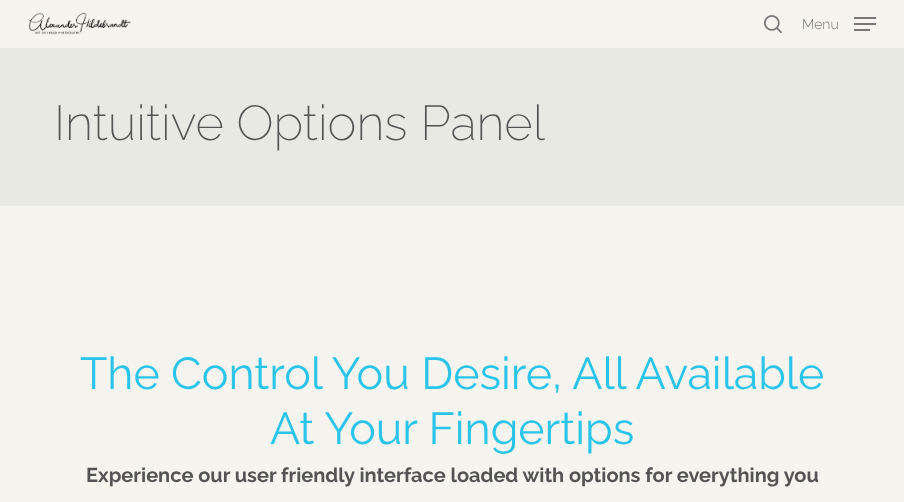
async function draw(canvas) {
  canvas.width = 904
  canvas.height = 502
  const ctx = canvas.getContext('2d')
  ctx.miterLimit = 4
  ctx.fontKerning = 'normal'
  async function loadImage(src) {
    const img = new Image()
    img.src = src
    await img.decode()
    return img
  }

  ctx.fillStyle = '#f5f4ee'
  ctx.fillRect(0, 0, 904, 502)
  ctx.drawImage(await loadImage('image0.png'), 28, 12, 103, 23)
  ctx.drawImage(await loadImage('image1.png'), 764, 15, 18, 18)
  ctx.font = '300 14px Raleway'
  ctx.fillStyle = '#777'
  ctx.fillText('Menu', 802, 29)
  ctx.fillRect(854, 17, 22, 2)
  ctx.fillRect(854, 29, 16, 2)
  ctx.fillRect(854, 23, 22, 2)
  ctx.fillStyle = '#e9e9e3'
  ctx.fillRect(0, 48, 904, 158)
  ctx.font = '200 49px Raleway'
  ctx.fillStyle = '#545454'
  ctx.fillText('Intuitive Options Panel', 54, 140)
  ctx.font = '44.75px Raleway'
  ctx.fillStyle = '#2ac4ea'
  ctx.fillText('The Control You Desire, All Available', 80, 389)
  ctx.fillText('At Your Fingertips', 270, 444)
  ctx.font = 'bold 20px Raleway'
  ctx.fillStyle = '#545454'
  ctx.fillText('Experience our user friendly interface loaded with options for everything you', 86, 482)
}

draw(document.querySelector('canvas'))
